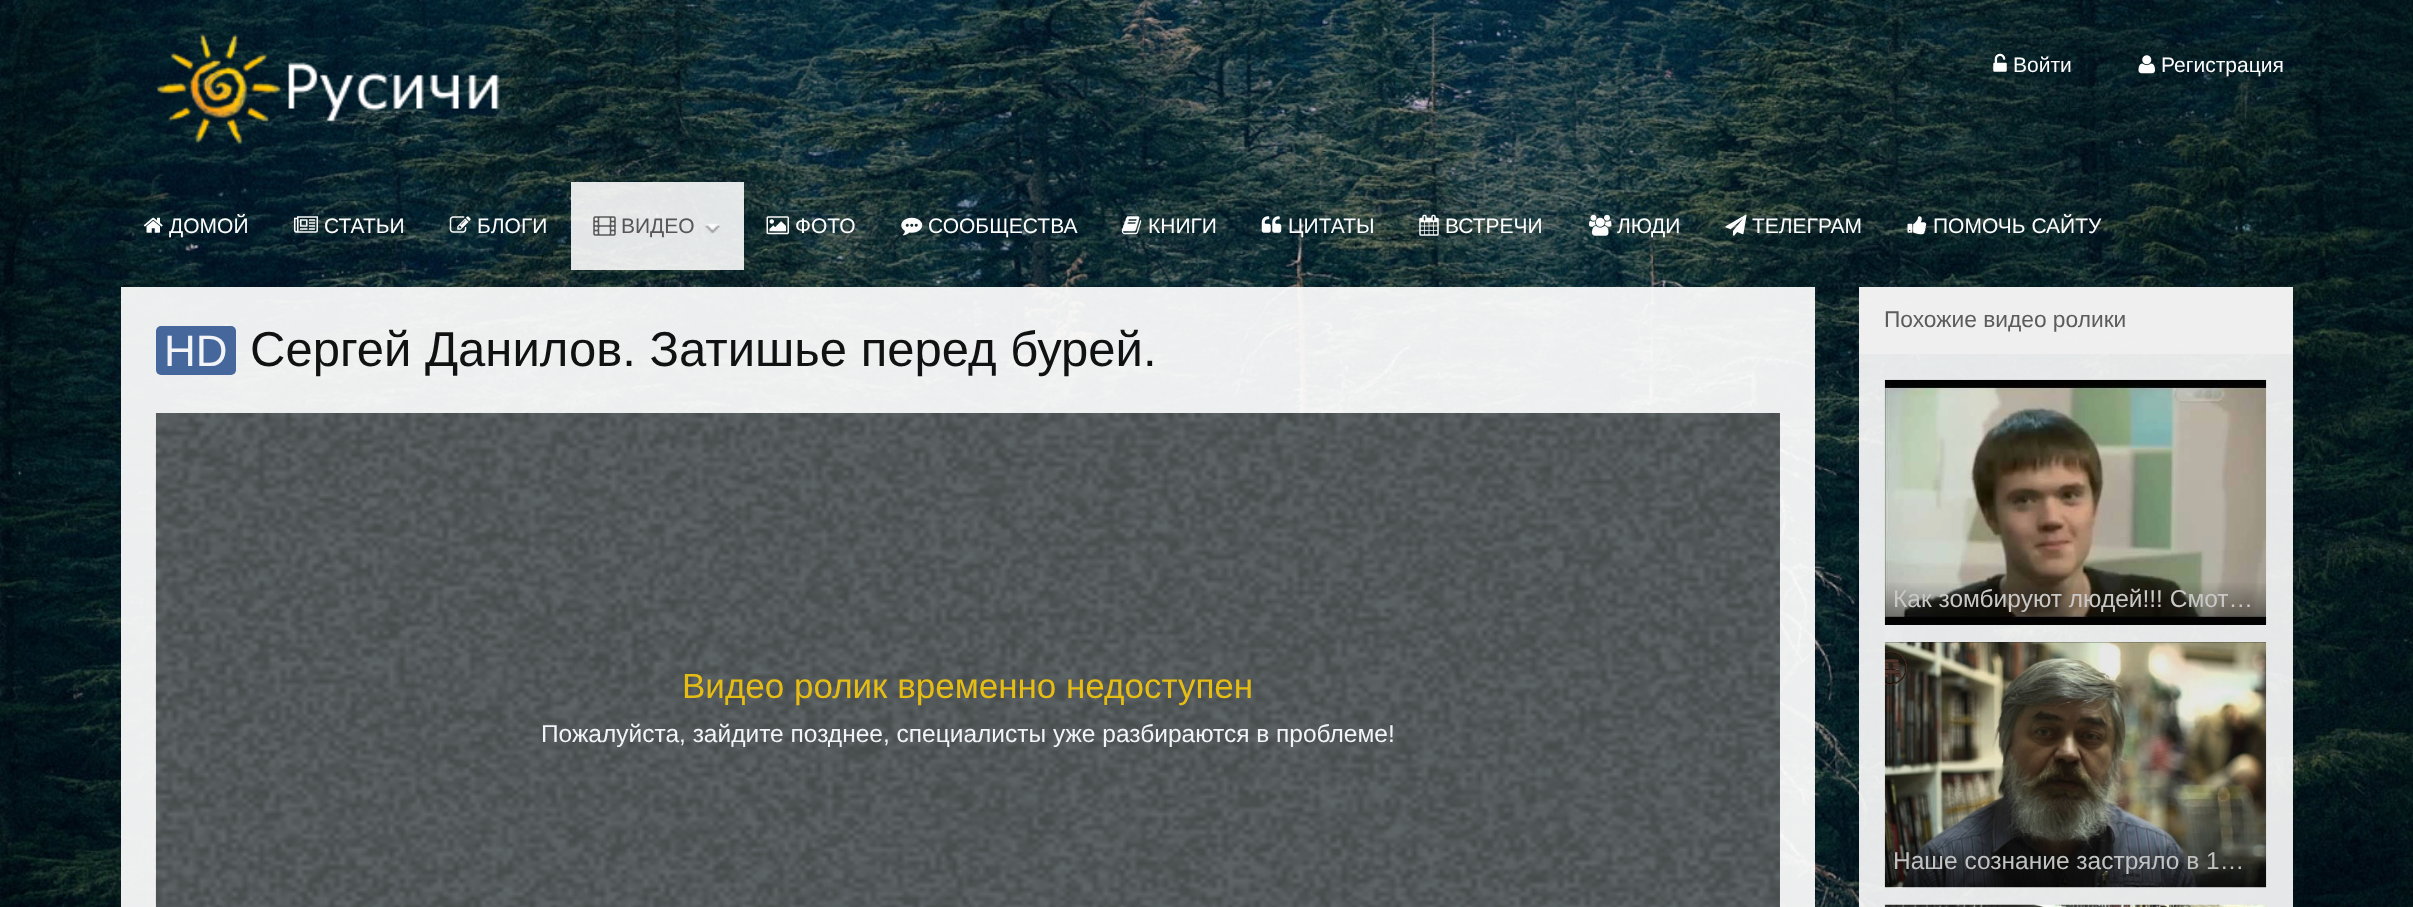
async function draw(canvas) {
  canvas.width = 2413
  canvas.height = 907
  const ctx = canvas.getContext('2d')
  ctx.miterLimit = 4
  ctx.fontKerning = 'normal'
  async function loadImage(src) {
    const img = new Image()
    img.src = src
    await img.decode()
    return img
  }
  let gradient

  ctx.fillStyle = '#fff'
  ctx.fillRect(0, 0, 2413, 907)
  ctx.drawImage(await loadImage('image0.png'), 0, 0, 2413, 907)
  ctx.drawImage(await loadImage('image1.png'), 157, 34, 343, 110)
  ctx.drawImage(await loadImage('image2.png'), 1993, 53, 14, 19)
  ctx.font = '21px Liberation Sans'
  ctx.fillStyle = '#fdfdfd'
  ctx.fillText('Войти', 2013, 72)
  ctx.drawImage(await loadImage('image3.png'), 2138, 55, 17, 19)
  ctx.fillText('Регистрация', 2161, 72)
  ctx.drawImage(await loadImage('image4.png'), 143, 217, 20, 16)
  ctx.fillText('ДОМОЙ', 169, 233)
  ctx.drawImage(await loadImage('image5.png'), 294, 216, 24, 17)
  ctx.fillText('СТАТЬИ', 324, 233)
  ctx.drawImage(await loadImage('image6.png'), 449, 216, 22, 17)
  ctx.fillText('БЛОГИ', 477, 233)
  ctx.fillStyle = '#ffffffe3'
  ctx.fillRect(571, 182, 173, 88)
  ctx.drawImage(await loadImage('image7.png'), 705, 223, 15, 11)
  ctx.drawImage(await loadImage('image8.png'), 593, 216, 23, 20)
  ctx.fillStyle = '#565656'
  ctx.fillText('ВИДЕО', 621, 233)
  ctx.drawImage(await loadImage('image9.png'), 766, 216, 23, 19)
  ctx.fillStyle = '#fdfdfd'
  ctx.fillText('ФОТО', 795, 233)
  ctx.drawImage(await loadImage('image10.png'), 901, 217, 22, 19)
  ctx.fillText('СООБЩЕСТВА', 928, 233)
  ctx.drawImage(await loadImage('image11.png'), 1121, 216, 21, 19)
  ctx.fillText('КНИГИ', 1148, 233)
  ctx.drawImage(await loadImage('image12.png'), 1261, 216, 21, 17)
  ctx.fillText('ЦИТАТЫ', 1288, 233)
  ctx.drawImage(await loadImage('image13.png'), 1419, 214, 20, 22)
  ctx.fillText('ВСТРЕЧИ', 1445, 233)
  ctx.drawImage(await loadImage('image14.png'), 1589, 214, 23, 22)
  ctx.fillText('ЛЮДИ', 1617, 233)
  ctx.drawImage(await loadImage('image15.png'), 1725, 214, 22, 22)
  ctx.fillText('ТЕЛЕГРАМ', 1752, 233)
  ctx.drawImage(await loadImage('image16.png'), 1907, 216, 20, 19)
  ctx.fillText('ПОМОЧЬ САЙТУ', 1933, 233)
  ctx.fillStyle = '#ffffffed'
  ctx.fillRect(121, 287, 1694, 620)
  ctx.fillStyle = '#385c94ed'
  ctx.beginPath()
  ctx.roundRect(156, 326, 80, 49, 5)
  ctx.fill()
  ctx.font = '44px Liberation Sans'
  ctx.fillStyle = '#f2f4f8'
  ctx.fillText('HD', 164, 366)
  ctx.font = '49px Liberation Sans'
  ctx.fillStyle = '#111'
  ctx.fillText('Сергей Данилов. Затишье перед бурей.', 250, 366)
  ctx.fillStyle = '#606768'
  ctx.fillRect(156, 413, 1624, 494)
  ctx.drawImage(await loadImage('image17.png'), 155, 413, 1625, 494)
  ctx.font = '35px Liberation Sans'
  ctx.fillStyle = '#e6bd14'
  ctx.fillText('Видео ролик временно недоступен', 682, 698)
  ctx.font = '24.5px Liberation Sans'
  ctx.fillStyle = '#f2f4f8'
  ctx.fillText('Пожалуйста, зайдите позднее, специалисты уже разбираются в проблеме!', 541, 742)
  ctx.fillStyle = '#ffffffe6'
  ctx.fillRect(1859, 287, 434, 620)
  ctx.fillStyle = '#efefefe6'
  ctx.fillRect(1859, 287, 434, 67)
  ctx.font = '22.75px Liberation Sans'
  ctx.fillStyle = '#5c5c5c'
  ctx.fillText('Похожие видео ролики', 1884, 327)
  ctx.fillStyle = '#000000e6'
  ctx.fillRect(1885, 380, 381, 245)
  ctx.drawImage(await loadImage('image18.png'), 1884, 379, 383, 246)
  gradient = ctx.createLinearGradient(2076, 581, 2076, 625)
  gradient.addColorStop(0, '#00000000')
  gradient.addColorStop(1, '#00000078')
  ctx.fillStyle = gradient
  ctx.fillRect(1885, 583, 381, 42)
  ctx.font = '24.5px Liberation Sans'
  ctx.fillStyle = '#c9c8c6'
  ctx.fillText('Как зомбируют людей!!! Смот…', 1893, 607)
  ctx.fillStyle = '#000000e6'
  ctx.fillRect(1885, 642, 381, 245)
  ctx.drawImage(await loadImage('image19.png'), 1884, 642, 383, 246)
  gradient = ctx.createLinearGradient(2076, 844, 2076, 887)
  gradient.addColorStop(0, '#00000000')
  gradient.addColorStop(1, '#00000078')
  ctx.fillStyle = gradient
  ctx.fillRect(1885, 846, 381, 41)
  ctx.fillStyle = '#c1c2c2'
  ctx.fillText('Наше сознание застряло в 1…', 1893, 869)
  ctx.drawImage(await loadImage('image20.png'), 1884, 904, 382, 3)
}

draw(document.querySelector('canvas'))
